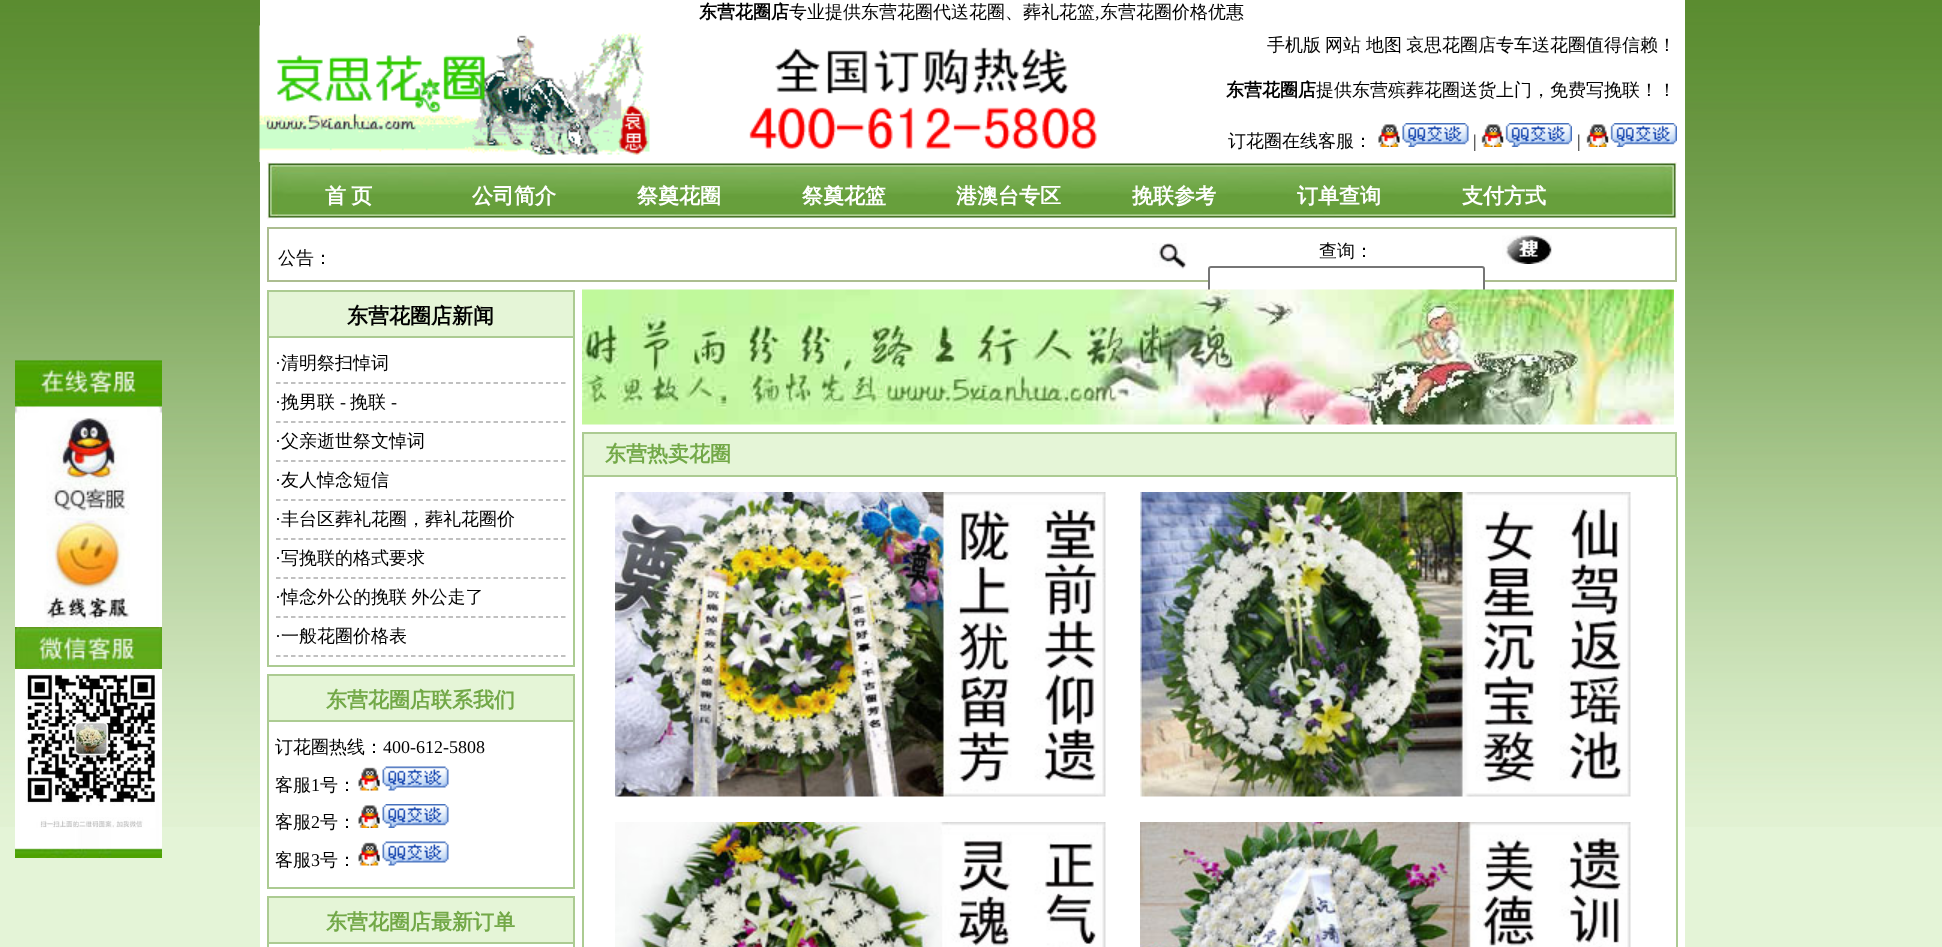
async function draw(canvas) {
  canvas.width = 1942
  canvas.height = 947
  const ctx = canvas.getContext('2d')
  ctx.miterLimit = 4
  ctx.fontKerning = 'normal'
  async function loadImage(src) {
    const img = new Image()
    img.src = src
    await img.decode()
    return img
  }

  ctx.fillStyle = '#e4f4d7'
  ctx.fillRect(0, 0, 1942, 947)
  ctx.drawImage(await loadImage('image0.png'), 0, 0, 1942, 827)
  ctx.fillStyle = '#fff'
  ctx.fillRect(260, 0, 1425, 947)
  ctx.font = 'bold 18px WenQuanYi Zen Hei'
  ctx.fillStyle = '#000'
  ctx.fillText('东营花圈店', 699, 18)
  ctx.font = '500 18px WenQuanYi Zen Hei'
  ctx.fillText('专业提供东营花圈代送花圈、葬礼花篮', 789, 18)
  ctx.font = '18px Liberation Serif'
  ctx.fillText(',', 1095, 18)
  ctx.font = '500 18px WenQuanYi Zen Hei'
  ctx.fillText('东营花圈价格优惠', 1100, 18)
  ctx.drawImage(await loadImage('image1.png'), 259, 25, 391, 137)
  ctx.fillText('手机版', 1267, 51)
  ctx.fillText('网站', 1325, 51)
  ctx.fillText('地图', 1366, 51)
  ctx.fillText('哀思花圈店专车送花圈值得信赖！', 1406, 51)
  ctx.drawImage(await loadImage('image2.png'), 749, 47, 348, 102)
  ctx.font = 'bold 18px WenQuanYi Zen Hei'
  ctx.fillText('东营花圈店', 1226, 96)
  ctx.font = '500 18px WenQuanYi Zen Hei'
  ctx.fillText('提供东营殡葬花圈送货上门，免费写挽联！！', 1316, 96)
  ctx.fillText('订花圈在线客服：', 1228, 147)
  ctx.drawImage(await loadImage('image3.png'), 1378, 123, 91, 24)
  ctx.font = '18px Liberation Serif'
  ctx.fillText('|', 1473, 147)
  ctx.drawImage(await loadImage('image4.png'), 1481, 123, 91, 24)
  ctx.fillText('|', 1577, 147)
  ctx.drawImage(await loadImage('image5.png'), 1586, 123, 91, 24)
  ctx.drawImage(await loadImage('image6.png'), 267, 162, 1410, 57)
  ctx.wordSpacing = '-1px'
  ctx.font = 'bold 21px WenQuanYi Zen Hei'
  ctx.fillStyle = '#fff'
  ctx.fillText('首 页', 325, 203)
  ctx.wordSpacing = '0px'
  ctx.fillText('公司简介', 472, 203)
  ctx.fillText('祭奠花圈', 637, 203)
  ctx.fillText('祭奠花篮', 802, 203)
  ctx.fillText('港澳台专区', 956, 203)
  ctx.fillText('挽联参考', 1132, 203)
  ctx.fillText('订单查询', 1297, 203)
  ctx.fillText('支付方式', 1462, 203)
  ctx.strokeStyle = '#acbd90'
  ctx.lineWidth = 2
  ctx.strokeRect(268, 228, 1408, 53)
  ctx.font = '500 18px WenQuanYi Zen Hei'
  ctx.fillStyle = '#000'
  ctx.fillText('公告：', 278, 264)
  ctx.drawImage(await loadImage('image7.png'), 1152, 243, 35, 26)
  ctx.fillText('查询：', 1319, 257)
  ctx.fillStyle = '#fff'
  ctx.beginPath()
  ctx.roundRect(1209, 267, 275, 29, 2)
  ctx.fill()
  ctx.strokeStyle = '#767676'
  ctx.stroke()
  ctx.drawImage(await loadImage('image8.png'), 1502, 235, 50, 29)
  ctx.drawImage(await loadImage('image9.png'), 15, 360, 147, 498)
  ctx.drawImage(await loadImage('image10.png'), 46, 417, 84, 99)
  ctx.drawImage(await loadImage('image11.png'), 44, 517, 86, 109)
  ctx.drawImage(await loadImage('image12.png'), 15, 627, 147, 42)
  ctx.drawImage(await loadImage('image13.png'), 25, 674, 130, 154)
  ctx.fillStyle = '#e5f5d7'
  ctx.beginPath()
  ctx.rect(268, 291, 306, 46)
  ctx.fill()
  ctx.strokeStyle = '#accb92'
  ctx.stroke()
  ctx.font = 'bold 21px WenQuanYi Zen Hei'
  ctx.fillStyle = '#000'
  ctx.fillText('东营花圈店新闻', 347, 323)
  ctx.fillStyle = '#accb92'
  ctx.fillRect(573, 338, 2, 328)
  ctx.fillRect(267, 665, 308, 2)
  ctx.fillRect(267, 338, 2, 328)
  ctx.beginPath()
  ctx.moveTo(276, 383)
  ctx.lineTo(565.5, 383)
  ctx.strokeStyle = '#acacac'
  ctx.lineWidth = 1.5
  ctx.setLineDash([4.5, 3])
  ctx.stroke()
  ctx.font = '18px Liberation Serif'
  ctx.fillStyle = '#000'
  ctx.fillText('·', 275, 369)
  ctx.font = '500 18px WenQuanYi Zen Hei'
  ctx.fillText('清明祭扫悼词', 281, 369)
  ctx.beginPath()
  ctx.moveTo(276, 422)
  ctx.lineTo(565.5, 422)
  ctx.stroke()
  ctx.font = '18px Liberation Serif'
  ctx.fillText('·', 275, 408)
  ctx.font = '500 18px WenQuanYi Zen Hei'
  ctx.fillText('挽男联', 281, 408)
  ctx.font = '18px Liberation Serif'
  ctx.fillText('-', 340, 408)
  ctx.font = '500 18px WenQuanYi Zen Hei'
  ctx.fillText('挽联', 350, 408)
  ctx.font = '18px Liberation Serif'
  ctx.fillText('-', 391, 408)
  ctx.beginPath()
  ctx.moveTo(276, 461)
  ctx.lineTo(565.5, 461)
  ctx.stroke()
  ctx.fillText('·', 275, 447)
  ctx.font = '500 18px WenQuanYi Zen Hei'
  ctx.fillText('父亲逝世祭文悼词', 281, 447)
  ctx.beginPath()
  ctx.moveTo(276, 500)
  ctx.lineTo(565.5, 500)
  ctx.stroke()
  ctx.font = '18px Liberation Serif'
  ctx.fillText('·', 275, 486)
  ctx.font = '500 18px WenQuanYi Zen Hei'
  ctx.fillText('友人悼念短信', 281, 486)
  ctx.beginPath()
  ctx.moveTo(276, 539)
  ctx.lineTo(565.5, 539)
  ctx.stroke()
  ctx.font = '18px Liberation Serif'
  ctx.fillText('·', 275, 525)
  ctx.font = '500 18px WenQuanYi Zen Hei'
  ctx.fillText('丰台区葬礼花圈，葬礼花圈价', 281, 525)
  ctx.beginPath()
  ctx.moveTo(276, 578)
  ctx.lineTo(565.5, 578)
  ctx.stroke()
  ctx.font = '18px Liberation Serif'
  ctx.fillText('·', 275, 564)
  ctx.font = '500 18px WenQuanYi Zen Hei'
  ctx.fillText('写挽联的格式要求', 281, 564)
  ctx.beginPath()
  ctx.moveTo(276, 617)
  ctx.lineTo(565.5, 617)
  ctx.stroke()
  ctx.font = '18px Liberation Serif'
  ctx.fillText('·', 275, 603)
  ctx.wordSpacing = '-1px'
  ctx.font = '500 18px WenQuanYi Zen Hei'
  ctx.fillText('悼念外公的挽联 外公走了', 281, 603)
  ctx.beginPath()
  ctx.moveTo(276, 656)
  ctx.lineTo(565.5, 656)
  ctx.stroke()
  ctx.wordSpacing = '0px'
  ctx.font = '18px Liberation Serif'
  ctx.fillText('·', 275, 642)
  ctx.font = '500 18px WenQuanYi Zen Hei'
  ctx.fillText('一般花圈价格表', 281, 642)
  ctx.fillStyle = '#e5f5d7'
  ctx.beginPath()
  ctx.rect(268, 675, 306, 46)
  ctx.fill()
  ctx.strokeStyle = '#accb92'
  ctx.lineWidth = 2
  ctx.setLineDash([])
  ctx.stroke()
  ctx.font = 'bold 21px WenQuanYi Zen Hei'
  ctx.fillStyle = '#72a847'
  ctx.fillText('东营花圈店联系我们', 326, 707)
  ctx.fillStyle = '#accb92'
  ctx.fillRect(573, 722, 2, 166)
  ctx.fillRect(267, 887, 308, 2)
  ctx.fillRect(267, 722, 2, 166)
  ctx.font = '500 18px WenQuanYi Zen Hei'
  ctx.fillStyle = '#000'
  ctx.fillText('订花圈热线：', 275, 753)
  ctx.font = '18px Liberation Serif'
  ctx.fillText('400-612-5808', 383, 753)
  ctx.font = '500 18px WenQuanYi Zen Hei'
  ctx.fillText('客服', 275, 791)
  ctx.font = '18px Liberation Serif'
  ctx.fillText('1', 311, 791)
  ctx.font = '500 18px WenQuanYi Zen Hei'
  ctx.fillText('号：', 320, 791)
  ctx.drawImage(await loadImage('image14.png'), 358, 766, 91, 25)
  ctx.fillText('客服', 275, 828)
  ctx.font = '18px Liberation Serif'
  ctx.fillText('2', 311, 828)
  ctx.font = '500 18px WenQuanYi Zen Hei'
  ctx.fillText('号：', 320, 828)
  ctx.drawImage(await loadImage('image15.png'), 358, 804, 91, 24)
  ctx.fillText('客服', 275, 866)
  ctx.font = '18px Liberation Serif'
  ctx.fillText('3', 311, 866)
  ctx.font = '500 18px WenQuanYi Zen Hei'
  ctx.fillText('号：', 320, 866)
  ctx.drawImage(await loadImage('image14.png'), 358, 841, 91, 25)
  ctx.fillStyle = '#e5f5d7'
  ctx.beginPath()
  ctx.rect(268, 897, 306, 46)
  ctx.fill()
  ctx.stroke()
  ctx.font = 'bold 21px WenQuanYi Zen Hei'
  ctx.fillStyle = '#72a847'
  ctx.fillText('东营花圈店最新订单', 326, 929)
  ctx.fillStyle = '#accb92'
  ctx.fillRect(573, 944, 2, 3)
  ctx.fillRect(267, 944, 2, 3)
  ctx.drawImage(await loadImage('image16.png'), 582, 289, 1092, 136)
  ctx.fillStyle = '#e5f5d7'
  ctx.beginPath()
  ctx.rect(583, 433, 1093, 43)
  ctx.fill()
  ctx.stroke()
  ctx.fillStyle = '#72a847'
  ctx.fillText('东营热卖花圈', 605, 461)
  ctx.fillStyle = '#accb92'
  ctx.fillRect(1676, 477, 2, 470)
  ctx.fillRect(582, 477, 2, 470)
  ctx.drawImage(await loadImage('image17.png'), 615, 492, 491, 305)
  ctx.drawImage(await loadImage('image18.png'), 1140, 492, 491, 305)
  ctx.drawImage(await loadImage('image19.png'), 615, 822, 491, 125)
  ctx.drawImage(await loadImage('image20.png'), 1140, 822, 491, 125)
}

draw(document.querySelector('canvas'))
